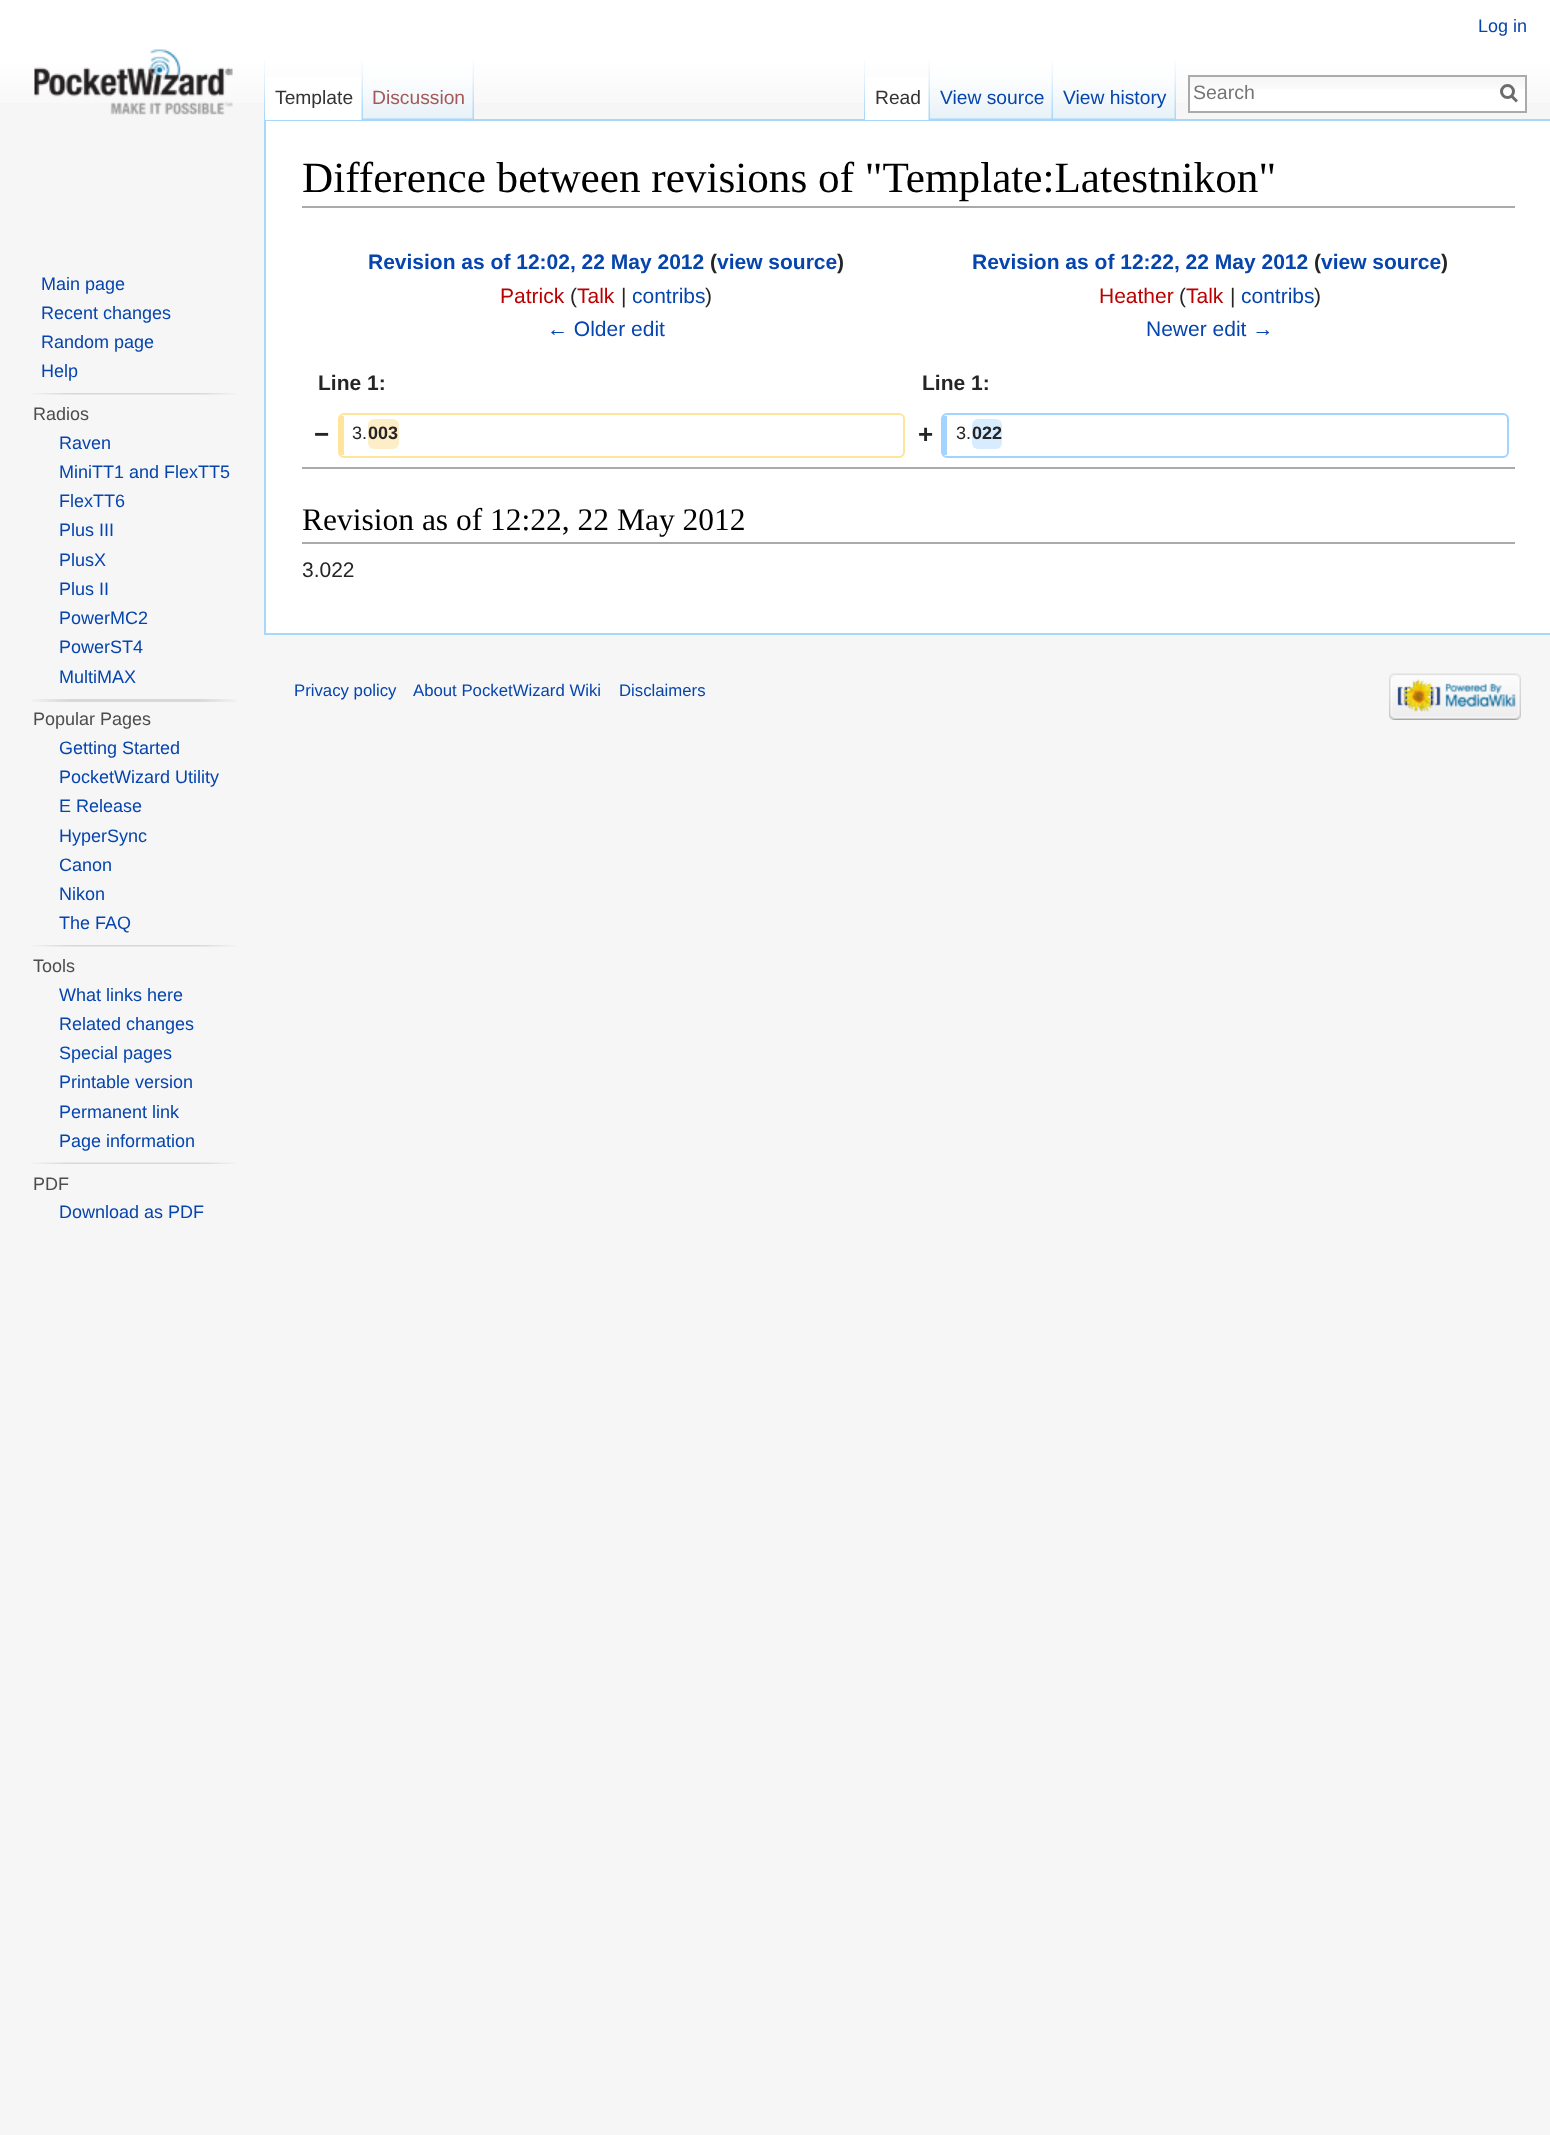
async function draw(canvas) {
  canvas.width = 1550
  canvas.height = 2135
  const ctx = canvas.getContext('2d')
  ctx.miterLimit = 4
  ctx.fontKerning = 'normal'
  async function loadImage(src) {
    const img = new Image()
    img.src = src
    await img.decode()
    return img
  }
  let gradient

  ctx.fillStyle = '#f6f6f6'
  ctx.fillRect(0, 0, 1550, 2135)
  gradient = ctx.createLinearGradient(776, 0, 776, 120)
  gradient.addColorStop(0.5, '#fff')
  gradient.addColorStop(1, '#f6f6f6')
  ctx.fillStyle = gradient
  ctx.fillRect(0, 0, 1550, 103)
  ctx.font = '18px Liberation Sans'
  ctx.fillStyle = '#0645ad'
  ctx.fillText('Log in', 1478, 32)
  ctx.drawImage(await loadImage('image0.png'), 264, 60, 1, 59)
  ctx.fillStyle = '#a7d7f9'
  ctx.fillRect(264, 119, 1286, 2)
  ctx.fillRect(264, 633, 1286, 2)
  ctx.fillRect(264, 119, 2, 516)
  ctx.fillStyle = '#fff'
  ctx.fillRect(265, 77, 98, 43)
  ctx.drawImage(await loadImage('image1.png'), 361, 61, 2, 59)
  ctx.font = '19.25px Liberation Sans'
  ctx.fillStyle = '#333'
  ctx.fillText('Template', 275, 104)
  ctx.drawImage(await loadImage('image2.png'), 363, 60, 111, 60)
  ctx.drawImage(await loadImage('image3.png'), 472, 61, 2, 58)
  ctx.fillStyle = '#a55858'
  ctx.fillText('Discussion', 372, 104)
  ctx.drawImage(await loadImage('image0.png'), 864, 60, 1, 59)
  ctx.fillStyle = '#fff'
  ctx.fillRect(865, 77, 65, 43)
  ctx.drawImage(await loadImage('image1.png'), 928, 61, 2, 59)
  ctx.fillStyle = '#333'
  ctx.fillText('Read', 875, 104)
  ctx.drawImage(await loadImage('image4.png'), 930, 60, 123, 60)
  ctx.drawImage(await loadImage('image3.png'), 1051, 61, 2, 58)
  ctx.fillStyle = '#0645ad'
  ctx.fillText('View source', 940, 104)
  ctx.drawImage(await loadImage('image4.png'), 1053, 60, 123, 60)
  ctx.drawImage(await loadImage('image3.png'), 1174, 61, 2, 58)
  ctx.fillText('View history', 1063, 104)
  ctx.fillStyle = '#fff'
  ctx.fillRect(1190, 89, 335, 22)
  ctx.drawImage(await loadImage('image5.png'), 1190, 77, 335, 12)
  ctx.strokeStyle = '#aaa'
  ctx.lineWidth = 2
  ctx.strokeRect(1189, 76, 337, 36)
  ctx.font = '19.5px Liberation Sans'
  ctx.fillStyle = '#757575'
  ctx.fillText('Search', 1193, 99)
  ctx.beginPath()
  ctx.moveTo(1517, 101.5)
  ctx.lineTo(1511, 95.5)
  ctx.strokeStyle = '#6c6c6c'
  ctx.lineWidth = 3
  ctx.stroke()
  ctx.beginPath()
  ctx.arc(1507.5, 91.5, 6, 0, 2 * Math.PI)
  ctx.stroke()
  ctx.drawImage(await loadImage('image6.png'), 34, 49, 199, 66)
  ctx.font = '18px Liberation Sans'
  ctx.fillStyle = '#0645ad'
  ctx.fillText('Main page', 41, 290)
  ctx.fillText('Recent changes', 41, 319)
  ctx.fillText('Random page', 41, 348)
  ctx.fillText('Help', 41, 377)
  ctx.drawImage(await loadImage('image7.png'), 32, 393, 204, 2)
  ctx.fillStyle = '#4d4d4d'
  ctx.fillText('Radios', 33, 420)
  ctx.fillStyle = '#0645ad'
  ctx.fillText('Raven', 59, 449)
  ctx.fillText('MiniTT1 and FlexTT5', 59, 478)
  ctx.fillText('FlexTT6', 59, 507)
  ctx.fillText('Plus III', 59, 536)
  ctx.fillText('PlusX', 59, 566)
  ctx.fillText('Plus II', 59, 595)
  ctx.fillText('PowerMC2', 59, 624)
  ctx.fillText('PowerST4', 59, 653)
  ctx.fillText('MultiMAX', 59, 683)
  ctx.drawImage(await loadImage('image8.png'), 32, 699, 204, 3)
  ctx.fillStyle = '#4d4d4d'
  ctx.fillText('Popular Pages', 33, 725)
  ctx.fillStyle = '#0645ad'
  ctx.fillText('Getting Started', 59, 754)
  ctx.fillText('PocketWizard Utility', 59, 783)
  ctx.fillText('E Release', 59, 812)
  ctx.fillText('HyperSync', 59, 842)
  ctx.fillText('Canon', 59, 871)
  ctx.fillText('Nikon', 59, 900)
  ctx.fillText('The FAQ', 59, 929)
  ctx.drawImage(await loadImage('image7.png'), 32, 945, 204, 2)
  ctx.fillStyle = '#4d4d4d'
  ctx.fillText('Tools', 33, 972)
  ctx.fillStyle = '#0645ad'
  ctx.fillText('What links here', 59, 1001)
  ctx.fillText('Related changes', 59, 1030)
  ctx.fillText('Special pages', 59, 1059)
  ctx.fillText('Printable version', 59, 1088)
  ctx.fillText('Permanent link', 59, 1118)
  ctx.fillText('Page information', 59, 1147)
  ctx.drawImage(await loadImage('image9.png'), 32, 1162, 204, 2)
  ctx.fillStyle = '#4d4d4d'
  ctx.fillText('PDF', 33, 1190)
  ctx.fillStyle = '#0645ad'
  ctx.fillText('Download as PDF', 59, 1218)
  ctx.fillStyle = '#fff'
  ctx.fillRect(266, 121, 1284, 512)
  ctx.fillStyle = '#aaa'
  ctx.fillRect(302, 206, 1213, 2)
  ctx.font = '43.2px Liberation Serif'
  ctx.fillStyle = '#000'
  ctx.fillText('Difference between revisions of "Template:Latestnikon"', 302, 192)
  ctx.font = 'bold 21px Liberation Sans'
  ctx.fillStyle = '#0645ad'
  ctx.fillText('Revision as of 12:02, 22 May 2012', 368, 269)
  ctx.fillStyle = '#252525'
  ctx.fillText('(', 710, 269)
  ctx.fillStyle = '#0645ad'
  ctx.fillText('view source', 717, 269)
  ctx.fillStyle = '#252525'
  ctx.fillText(')', 837, 269)
  ctx.font = '21px Liberation Sans'
  ctx.fillStyle = '#ba0000'
  ctx.fillText('Patrick', 500, 303)
  ctx.fillStyle = '#252525'
  ctx.fillText('(', 570, 303)
  ctx.fillStyle = '#ba0000'
  ctx.fillText('Talk', 577, 303)
  ctx.fillStyle = '#252525'
  ctx.fillText('|', 621, 303)
  ctx.fillStyle = '#0645ad'
  ctx.fillText('contribs', 632, 303)
  ctx.fillStyle = '#252525'
  ctx.fillText(')', 705, 303)
  ctx.fillStyle = '#0645ad'
  ctx.fillText('← Older edit', 547, 336)
  ctx.font = 'bold 21px Liberation Sans'
  ctx.fillText('Revision as of 12:22, 22 May 2012', 972, 269)
  ctx.fillStyle = '#252525'
  ctx.fillText('(', 1314, 269)
  ctx.fillStyle = '#0645ad'
  ctx.fillText('view source', 1321, 269)
  ctx.fillStyle = '#252525'
  ctx.fillText(')', 1441, 269)
  ctx.font = '21px Liberation Sans'
  ctx.fillStyle = '#ba0000'
  ctx.fillText('Heather', 1099, 303)
  ctx.fillStyle = '#252525'
  ctx.fillText('(', 1179, 303)
  ctx.fillStyle = '#ba0000'
  ctx.fillText('Talk', 1186, 303)
  ctx.fillStyle = '#252525'
  ctx.fillText('|', 1230, 303)
  ctx.fillStyle = '#0645ad'
  ctx.fillText('contribs', 1241, 303)
  ctx.fillStyle = '#252525'
  ctx.fillText(')', 1314, 303)
  ctx.fillStyle = '#0645ad'
  ctx.fillText('Newer edit →', 1146, 336)
  ctx.font = 'bold 21px Liberation Sans'
  ctx.fillStyle = '#252525'
  ctx.fillText('Line 1:', 318, 390)
  ctx.fillText('Line 1:', 922, 390)
  ctx.font = 'bold 26px Liberation Sans'
  ctx.fillText('−', 314, 443)
  ctx.beginPath()
  ctx.roundRect(339, 414, 565, 43, 5)
  ctx.strokeStyle = '#ffe49c'
  ctx.lineWidth = 2
  ctx.stroke()
  ctx.fillStyle = '#ffe49c'
  ctx.fillRect(340, 416, 4, 39)
  ctx.font = '18px Liberation Sans'
  ctx.fillStyle = '#252525'
  ctx.fillText('3.', 352, 439)
  ctx.fillStyle = '#feeec8'
  ctx.beginPath()
  ctx.roundRect(368, 419, 31, 30, 6)
  ctx.fill()
  ctx.font = 'bold 18px Liberation Sans'
  ctx.fillStyle = '#252525'
  ctx.fillText('003', 368, 439)
  ctx.font = 'bold 26px Liberation Sans'
  ctx.fillText('+', 918, 443)
  ctx.beginPath()
  ctx.roundRect(942, 414, 566, 43, 5)
  ctx.strokeStyle = '#a3d3ff'
  ctx.stroke()
  ctx.fillStyle = '#a3d3ff'
  ctx.fillRect(943, 416, 4, 39)
  ctx.font = '18px Liberation Sans'
  ctx.fillStyle = '#252525'
  ctx.fillText('3.', 956, 439)
  ctx.fillStyle = '#d8ecff'
  ctx.beginPath()
  ctx.roundRect(972, 419, 30, 30, 6)
  ctx.fill()
  ctx.font = 'bold 18px Liberation Sans'
  ctx.fillStyle = '#252525'
  ctx.fillText('022', 972, 439)
  ctx.fillStyle = '#aaa'
  ctx.fillRect(302, 467, 1213, 2)
  ctx.fillRect(302, 542, 1213, 2)
  ctx.font = '31.5px Liberation Serif'
  ctx.fillStyle = '#000'
  ctx.fillText('Revision as of 12:22, 22 May 2012', 302, 530)
  ctx.font = '21px Liberation Sans'
  ctx.fillStyle = '#252525'
  ctx.fillText('3.022', 302, 577)
  ctx.font = '16.75px Liberation Sans'
  ctx.fillStyle = '#0645ad'
  ctx.fillText('Privacy policy', 294, 696)
  ctx.fillText('About PocketWizard Wiki', 413, 696)
  ctx.fillText('Disclaimers', 619, 696)
  ctx.drawImage(await loadImage('image10.png'), 1389, 673, 132, 47)
}

draw(document.querySelector('canvas'))
